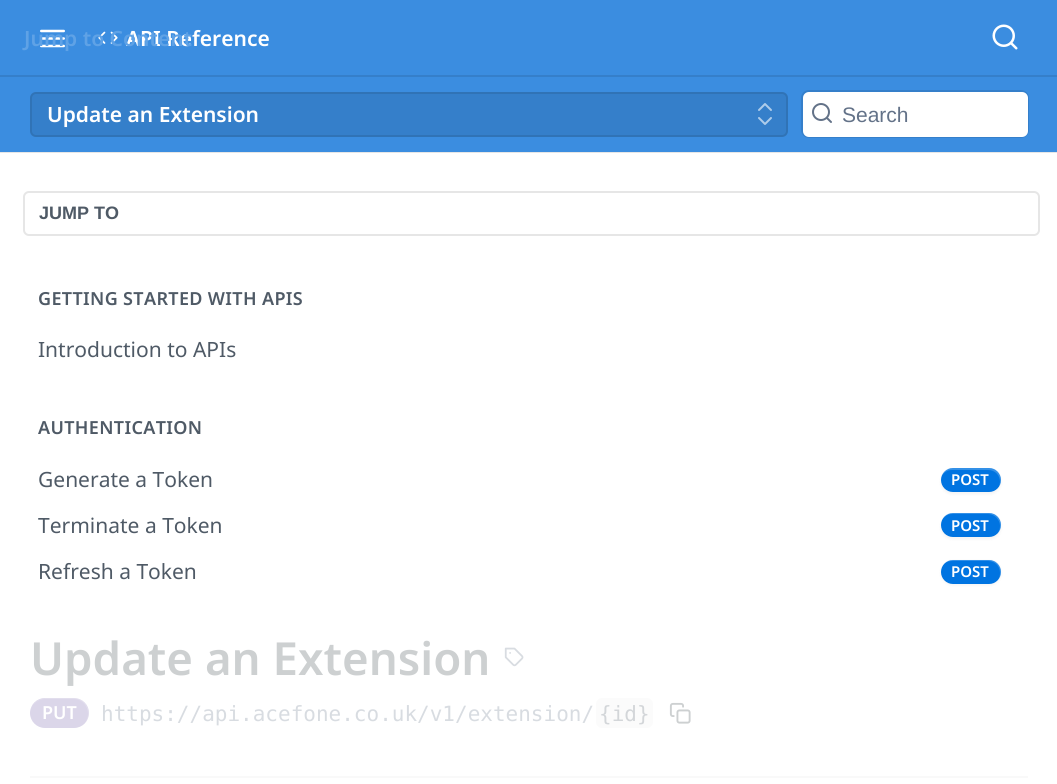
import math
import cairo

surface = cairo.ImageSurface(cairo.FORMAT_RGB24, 1057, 784)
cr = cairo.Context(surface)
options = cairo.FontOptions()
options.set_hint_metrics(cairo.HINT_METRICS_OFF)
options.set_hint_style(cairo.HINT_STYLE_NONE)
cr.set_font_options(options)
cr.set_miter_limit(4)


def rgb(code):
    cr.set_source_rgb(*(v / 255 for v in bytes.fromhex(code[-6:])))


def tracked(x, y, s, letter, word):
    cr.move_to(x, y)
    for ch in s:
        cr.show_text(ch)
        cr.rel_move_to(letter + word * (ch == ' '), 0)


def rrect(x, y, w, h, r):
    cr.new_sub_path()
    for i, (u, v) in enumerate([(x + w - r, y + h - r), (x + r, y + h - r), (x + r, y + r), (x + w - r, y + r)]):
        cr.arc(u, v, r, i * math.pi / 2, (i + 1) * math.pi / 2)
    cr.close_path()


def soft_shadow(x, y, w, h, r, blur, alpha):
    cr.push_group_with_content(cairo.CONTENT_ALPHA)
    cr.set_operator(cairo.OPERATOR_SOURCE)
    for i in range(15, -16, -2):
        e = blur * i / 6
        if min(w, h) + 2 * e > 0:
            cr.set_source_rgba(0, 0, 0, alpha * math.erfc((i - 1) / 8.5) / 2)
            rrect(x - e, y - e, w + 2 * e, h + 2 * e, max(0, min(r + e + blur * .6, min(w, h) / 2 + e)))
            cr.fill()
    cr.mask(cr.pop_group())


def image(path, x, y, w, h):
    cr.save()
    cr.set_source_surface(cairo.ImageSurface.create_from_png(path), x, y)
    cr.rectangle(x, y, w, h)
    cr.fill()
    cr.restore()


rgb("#ffffff")
cr.paint()
rgb("#e6e6e6")
cr.new_path()
cr.move_to(0, 152)
cr.line_to(0, 153)
cr.line_to(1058, 153)
cr.line_to(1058, 2)
cr.line_to(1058, 152)
cr.close_path()
cr.fill()
rgb("#3b8de0")
cr.rectangle(0, 0, 1057, 152)
cr.fill()
rgb("#357fca")
cr.rectangle(0, 75, 1057, 2)
cr.fill()
image("img/1.png", 40, 29, 25, 19)
image("img/2.png", 98, 31, 20, 13)
image("img/3.png", 992, 24, 26, 26)
rrect(30, 92, 758, 45, 6)
cr.fill()
rrect(31, 93, 756, 43, 5)
cr.set_source_rgba(0, 0, 0, 0.1)
cr.stroke()
cr.new_path()
cr.move_to(759, 118)
cr.line_to(765, 124)
cr.line_to(771, 118)
cr.move_to(771, 110)
cr.line_to(765, 104)
cr.line_to(759, 110)
rgb("#aeccea")
cr.set_line_cap(cairo.LINE_CAP_ROUND)
cr.set_line_join(cairo.LINE_JOIN_ROUND)
cr.stroke()
rrect(802, 91, 226, 46, 7)
rgb("#357fca")
cr.set_line_cap(cairo.LINE_CAP_BUTT)
cr.set_line_join(cairo.LINE_JOIN_MITER)
cr.stroke()
rgb("#ffffff")
rrect(803, 92, 225, 45, 6)
cr.fill()
image("img/4.png", 812, 103, 20, 20)
rrect(24, 192, 1015, 43, 5)
rgb("#e6e6e6")
cr.stroke()
rgb("#000000")
soft_shadow(941, 470, 60, 24, 12, 1.5, 0.05)
rgb("#0074e1")
rrect(941, 468, 60, 24, 12)
cr.fill()
cr.set_source_rgba(1, 1, 1, 0.2)
cr.new_path()
cr.move_to(952, 470)
cr.line_to(988, 470)
cr.curve_to(995, 470, 1000, 475, 1000, 482)
cr.line_to(999, 487)
cr.curve_to(1000, 485, 1001, 482, 1001, 480)
cr.curve_to(1001, 473, 996, 468, 989, 468)
cr.line_to(953, 468)
cr.curve_to(948, 468, 943, 471, 942, 476)
cr.curve_to(944, 472, 948, 470, 952, 470)
cr.close_path()
cr.fill()
rgb("#000000")
soft_shadow(941, 515, 60, 24, 12, 1.5, 0.05)
rgb("#0074e1")
rrect(941, 513, 60, 24, 12)
cr.fill()
cr.set_source_rgba(1, 1, 1, 0.2)
cr.new_path()
cr.move_to(952, 514)
cr.line_to(988, 514)
cr.curve_to(995, 514, 1000, 520, 1000, 526)
cr.curve_to(1000, 529, 999, 531, 998, 533)
cr.curve_to(1000, 531, 1001, 528, 1001, 525)
cr.curve_to(1001, 518, 996, 513, 989, 513)
cr.line_to(953, 513)
cr.curve_to(948, 513, 945, 515, 943, 519)
cr.curve_to(945, 516, 948, 514, 952, 514)
cr.close_path()
cr.fill()
rgb("#000000")
soft_shadow(941, 561, 60, 24, 12, 1.5, 0.05)
rgb("#0074e1")
rrect(941, 560, 60, 24, 12)
cr.fill()
cr.set_source_rgba(1, 1, 1, 0.2)
cr.new_path()
cr.move_to(952, 561)
cr.line_to(988, 561)
cr.curve_to(995, 561, 1000, 566, 1000, 573)
cr.curve_to(1000, 576, 999, 578, 998, 580)
cr.curve_to(1000, 578, 1001, 575, 1001, 572)
cr.curve_to(1001, 565, 996, 560, 989, 560)
cr.line_to(953, 560)
cr.curve_to(949, 560, 946, 562, 944, 564)
cr.curve_to(946, 562, 949, 561, 952, 561)
cr.close_path()
cr.fill()
rgb("#f9f9f9")
cr.rectangle(30, 776, 998, 2)
cr.fill()
image("img/5.png", 504, 647, 20, 20)
rgb("#dbd6e9")
rrect(30, 698, 59, 30, 15)
cr.fill()
cr.set_source_rgba(1, 1, 1, 0.2)
cr.new_path()
cr.move_to(45, 699)
cr.line_to(74, 699)
cr.curve_to(82, 699, 88, 706, 88, 714)
cr.curve_to(88, 717, 87, 720, 85, 723)
cr.curve_to(93, 715, 88, 701, 77, 698)
cr.line_to(60, 698)
cr.curve_to(50, 698, 39, 696, 33, 705)
cr.curve_to(31, 707, 30, 710, 30, 714)
cr.curve_to(30, 706, 37, 699, 45, 699)
cr.close_path()
cr.fill()
rgb("#fbfbfb")
rrect(596, 698, 57, 30, 6)
cr.fill()
image("img/6.png", 669, 702, 22, 22)
cr.select_font_face("Noto Sans SemiBold")
cr.set_font_size(21)
rgb("#ffffff")
cr.move_to(126, 46)
cr.show_text("API Reference")
rgb("#5fa2e6")
cr.move_to(24, 46)
cr.show_text("Jump to Content")
rgb("#ffffff")
cr.move_to(47, 122)
cr.show_text("Update an Extension")
cr.select_font_face("Liberation Sans")
rgb("#637288")
cr.move_to(842, 122)
cr.show_text("Search")
cr.select_font_face("Liberation Sans", cairo.FONT_SLANT_NORMAL, cairo.FONT_WEIGHT_BOLD)
cr.set_font_size(18)
rgb("#4f5a66")
cr.move_to(39, 219)
cr.show_text("JUMP TO")
cr.select_font_face("Noto Sans SemiBold")
tracked(38, 305, "GETTING STARTED WITH APIS", 0.35, 0)
cr.select_font_face("Noto Sans")
cr.set_font_size(21)
cr.move_to(38, 357)
cr.show_text("Introduction to APIs")
cr.select_font_face("Noto Sans SemiBold")
cr.set_font_size(18)
tracked(38, 434, "AUTHENTICATION", 0.35, 0)
cr.select_font_face("Noto Sans")
cr.set_font_size(21)
cr.move_to(38, 487)
cr.show_text("Generate a Token")
cr.select_font_face("Noto Sans SemiBold")
cr.set_font_size(15)
rgb("#ffffff")
cr.move_to(951, 485)
cr.show_text("POST")
cr.select_font_face("Noto Sans")
cr.set_font_size(21)
rgb("#4f5a66")
cr.move_to(38, 533)
cr.show_text("Terminate a Token")
cr.select_font_face("Noto Sans SemiBold")
cr.set_font_size(15)
rgb("#ffffff")
cr.move_to(951, 531)
cr.show_text("POST")
cr.select_font_face("Noto Sans")
cr.set_font_size(21)
rgb("#4f5a66")
cr.move_to(38, 579)
cr.show_text("Refresh a Token")
cr.select_font_face("Noto Sans SemiBold")
cr.set_font_size(15)
rgb("#ffffff")
cr.move_to(951, 577)
cr.show_text("POST")
cr.set_font_size(45.6)
rgb("#cdd0d1")
cr.move_to(30, 675)
cr.show_text("Update an Extension")
cr.set_font_size(18)
rgb("#ffffff")
cr.move_to(42, 719)
cr.show_text("PUT")
cr.select_font_face("DejaVu Sans Mono")
cr.set_font_size(21)
rgb("#d8dce1")
cr.move_to(101, 721)
cr.show_text("https://api.acefone.co.uk/v1/extension/")
rgb("#d3d6d9")
cr.move_to(599, 721)
cr.show_text("{id}")
surface.write_to_png("page.png")
